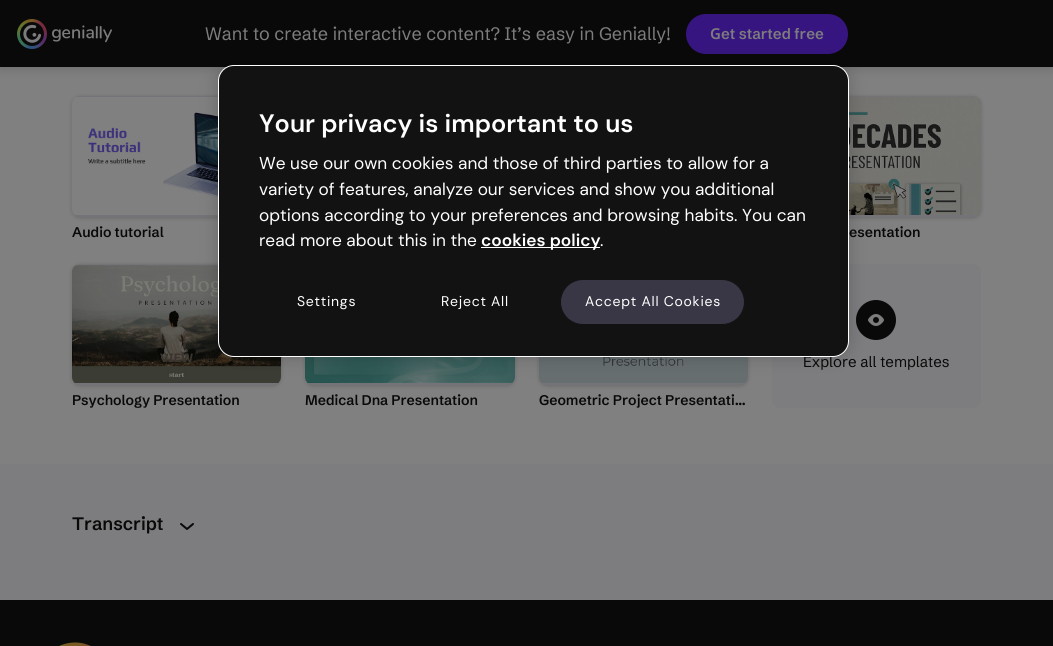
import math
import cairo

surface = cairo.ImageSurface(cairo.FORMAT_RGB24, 1053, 646)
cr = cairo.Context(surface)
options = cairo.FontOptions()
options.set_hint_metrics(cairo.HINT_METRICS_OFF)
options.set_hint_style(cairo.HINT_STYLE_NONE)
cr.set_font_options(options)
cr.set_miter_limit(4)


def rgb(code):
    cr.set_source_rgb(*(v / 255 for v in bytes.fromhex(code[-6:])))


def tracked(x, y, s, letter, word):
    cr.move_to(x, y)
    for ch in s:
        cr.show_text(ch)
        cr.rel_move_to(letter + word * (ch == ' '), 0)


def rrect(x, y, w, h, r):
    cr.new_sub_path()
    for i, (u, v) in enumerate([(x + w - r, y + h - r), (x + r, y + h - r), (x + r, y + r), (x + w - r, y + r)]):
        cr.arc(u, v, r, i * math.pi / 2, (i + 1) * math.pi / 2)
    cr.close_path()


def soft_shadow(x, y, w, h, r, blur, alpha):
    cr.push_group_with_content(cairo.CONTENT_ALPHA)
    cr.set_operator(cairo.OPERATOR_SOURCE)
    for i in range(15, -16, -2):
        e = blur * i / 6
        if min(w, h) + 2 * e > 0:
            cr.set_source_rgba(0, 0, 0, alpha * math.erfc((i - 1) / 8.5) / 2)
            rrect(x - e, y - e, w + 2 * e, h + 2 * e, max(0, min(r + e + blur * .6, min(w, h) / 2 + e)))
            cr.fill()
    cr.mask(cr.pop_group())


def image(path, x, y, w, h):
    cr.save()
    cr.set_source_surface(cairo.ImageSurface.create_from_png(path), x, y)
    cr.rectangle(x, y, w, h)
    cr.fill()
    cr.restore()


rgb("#808080")
cr.paint()
rgb("#090909")
soft_shadow(0, -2, 1053, 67, 0, 6.5, 0.3)
rgb("#090909")
cr.rectangle(0, 0, 1053, 67)
cr.fill()
image("img/1.png", 17, 19, 95, 30)
rgb("#361580")
rrect(686, 14, 162, 40, 20)
cr.fill()
rgb("#090909")
soft_shadow(72, 97, 209, 121, 8, 2, 0.2)
rgb("#747378")
rrect(72, 96, 209, 121, 8)
cr.fill()
image("img/2.png", 72, 97, 146, 118)
rgb("#090909")
soft_shadow(772, 97, 209, 121, 8, 2, 0.2)
rgb("#747378")
rrect(772, 96, 209, 121, 8)
cr.fill()
image("img/3.png", 849, 97, 132, 118)
rgb("#090909")
soft_shadow(72, 265, 209, 121, 8, 2, 0.2)
rgb("#747378")
rrect(72, 264, 209, 121, 8)
cr.fill()
image("img/4.png", 72, 265, 209, 118)
rgb("#7d7c7e")
rrect(772, 264, 209, 144, 8)
cr.fill()
rgb("#090909")
cr.arc(876, 320, 20, 0, 2 * math.pi)
cr.fill()
image("img/5.png", 868, 314, 16, 12)
rgb("#090909")
soft_shadow(305, 265, 210, 121, 8, 2, 0.2)
rgb("#747378")
rrect(305, 264, 210, 121, 8)
cr.fill()
image("img/6.png", 305, 357, 210, 26)
rgb("#090909")
soft_shadow(539, 265, 209, 121, 8, 2, 0.2)
rgb("#747378")
rrect(539, 264, 209, 121, 8)
cr.fill()
image("img/7.png", 539, 357, 209, 26)
rgb("#7d7c7e")
cr.rectangle(0, 464, 1053, 136)
cr.fill()
image("img/8.png", 180, 523, 14, 7)
rgb("#090909")
cr.rectangle(0, 600, 1053, 46)
cr.fill()
image("img/9.png", 59, 642, 32, 4)
rgb("#000000")
soft_shadow(218, 65, 631, 292, 16, 9, 0.2)
cr.select_font_face("Schibsted Grotesk")
cr.set_font_size(18)
rgb("#7d7c7e")
cr.move_to(205, 40)
cr.show_text("Want to create interactive content? It’s easy in Genially!")
cr.select_font_face("Noto Sans SemiBold")
cr.set_font_size(15)
cr.move_to(710, 39)
cr.show_text("G")
cr.select_font_face("Schibsted Grotesk SemiBold")
cr.move_to(721, 39)
cr.show_text("et started free")
cr.set_font_size(14)
rgb("#090909")
cr.move_to(72, 237)
cr.show_text("Audio tutorial")
cr.select_font_face("Schibsted Grotesk", cairo.FONT_SLANT_NORMAL, cairo.FONT_WEIGHT_BOLD)
cr.set_font_size(12)
rgb("#5b584d")
cr.move_to(860, 194)
cr.show_text("VIEW")
cr.select_font_face("Schibsted Grotesk SemiBold")
cr.set_font_size(14)
rgb("#090909")
cr.move_to(849, 237)
cr.show_text("esentation")
cr.select_font_face("Schibsted Grotesk", cairo.FONT_SLANT_NORMAL, cairo.FONT_WEIGHT_BOLD)
cr.set_font_size(12)
rgb("#3a352e")
cr.move_to(160, 362)
cr.show_text("VIEW")
cr.select_font_face("Schibsted Grotesk SemiBold")
cr.set_font_size(14)
rgb("#090909")
cr.move_to(72, 405)
cr.show_text("Psychology Presentation")
cr.select_font_face("Schibsted Grotesk")
cr.set_font_size(15)
cr.move_to(803, 367)
cr.show_text("Explore all templates")
cr.select_font_face("Schibsted Grotesk SemiBold")
cr.set_font_size(14)
cr.move_to(305, 405)
cr.show_text("Medical Dna Presentation")
cr.move_to(539, 405)
cr.show_text("Geometric Project Presentati…")
cr.set_font_size(18)
cr.move_to(72, 530)
cr.show_text("Transcript")
rgb("#121212")
rrect(218.5, 65.5, 630, 291, 15.5)
cr.fill_preserve()
rgb("#ffffff")
cr.set_line_width(1)
cr.stroke()
cr.select_font_face("DM Sans SemiBold")
cr.set_font_size(25.25)
cr.move_to(259, 132)
cr.show_text("Your privacy is important to us")
cr.select_font_face("DM Sans")
cr.set_font_size(17.25)
for x, y, s in [
    (259, 169, "We use our own cookies and those of third parties to allow for a"),
    (259, 195, "variety of features, analyze our services and show you additional"),
    (259, 221, "options according to your preferences and browsing habits. You can"),
    (259, 246, "read more about this in the"),
]:
    cr.move_to(x, y)
    cr.show_text(s)
cr.rectangle(481, 247, 119, 1)
cr.fill()
cr.select_font_face("DM Sans SemiBold")
cr.move_to(481, 246)
cr.show_text("cookies policy")
cr.select_font_face("DM Sans")
cr.move_to(600, 246)
cr.show_text(".")
cr.set_font_size(14)
tracked(297, 306, "Settings", 0.75, 0)
tracked(441, 306, "Reject All", 0.75, 0)
rgb("#393645")
rrect(560.5, 279.5, 184, 45, 22.5)
cr.fill_preserve()
rgb("#121212")
cr.stroke()
rgb("#ffffff")
tracked(585, 306, "Accept All Cookies", 0.75, 0)
surface.write_to_png("page.png")
